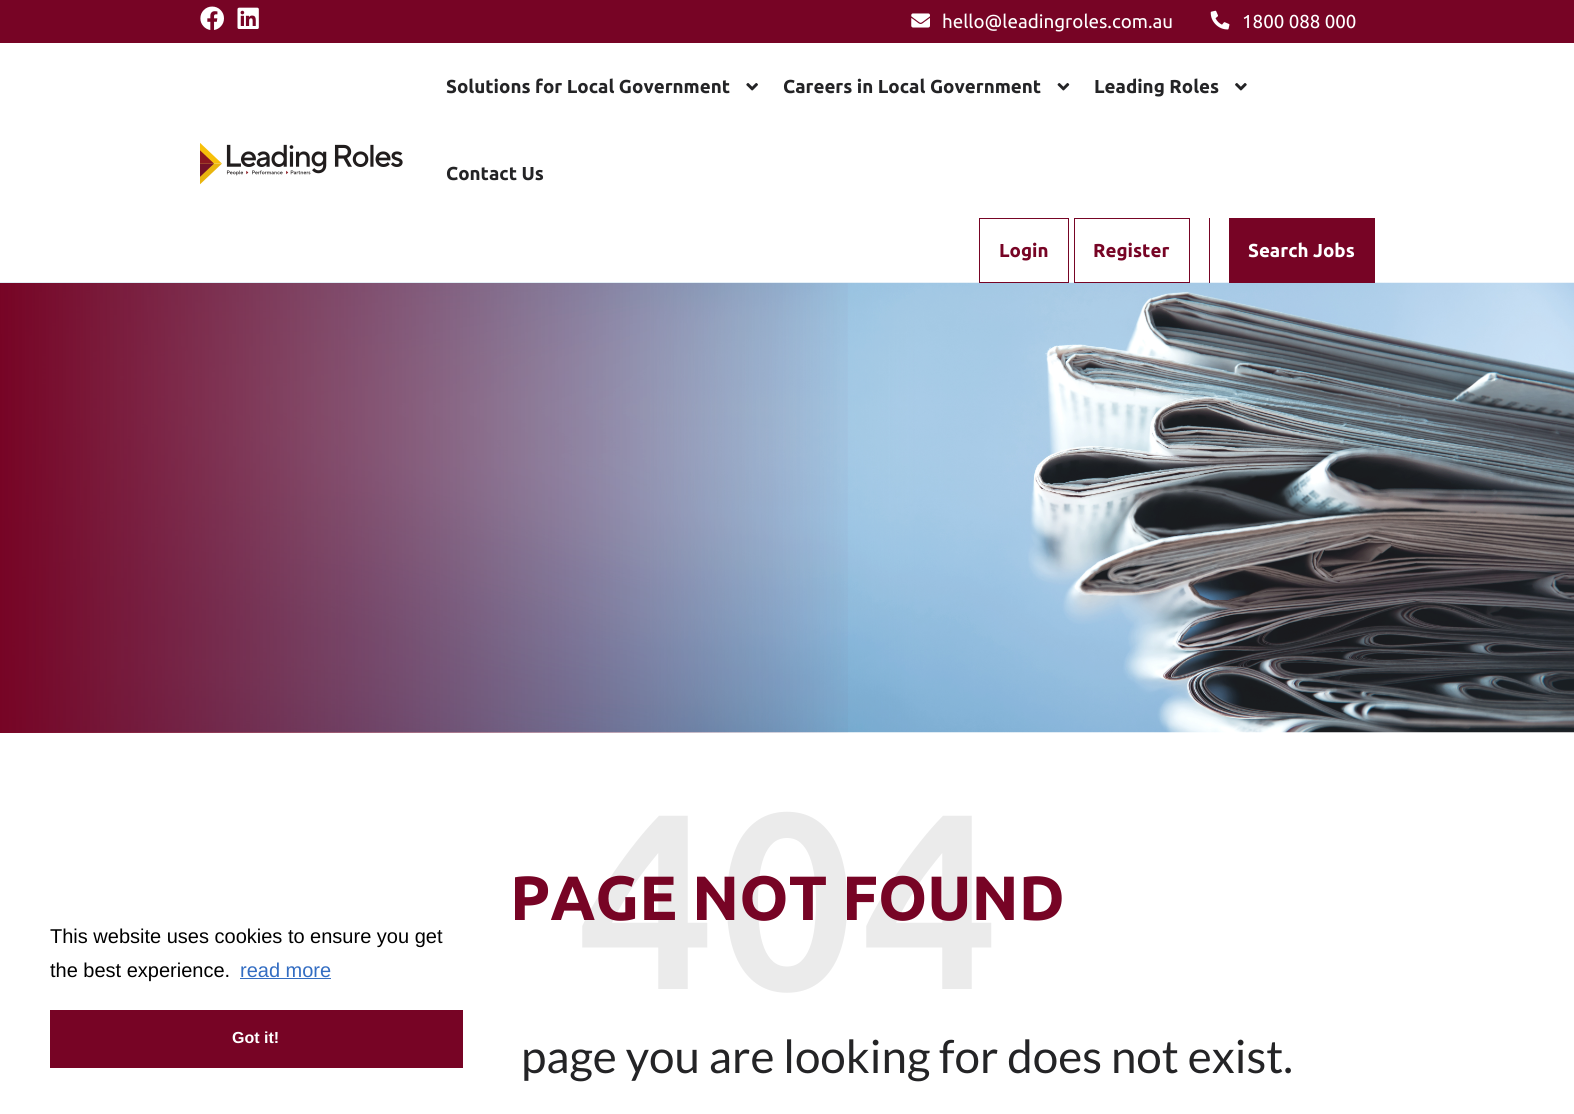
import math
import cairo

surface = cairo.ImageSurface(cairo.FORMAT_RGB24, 1574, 1114)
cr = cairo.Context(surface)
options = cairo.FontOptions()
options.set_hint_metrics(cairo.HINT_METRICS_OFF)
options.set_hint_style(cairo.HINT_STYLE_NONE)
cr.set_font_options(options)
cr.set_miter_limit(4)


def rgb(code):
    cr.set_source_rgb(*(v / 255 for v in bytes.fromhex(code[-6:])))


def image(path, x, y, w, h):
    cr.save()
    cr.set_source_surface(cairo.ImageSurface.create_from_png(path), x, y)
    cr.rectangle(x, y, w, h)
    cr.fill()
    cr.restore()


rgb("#ffffff")
cr.paint()
for x, y, w, h, color in [
    (240, 978, 91, 1, "#336dc2"),
    (50, 1010, 413, 58, "#770425"),
    (0, 0, 1574, 43, "#770425"),
]:
    rgb(color)
    cr.rectangle(x, y, w, h)
    cr.fill()
image("img/1.png", 200, 6, 24, 24)
image("img/2.png", 237, 7, 22, 22)
image("img/3.png", 911, 13, 19, 15)
image("img/4.png", 1210, 10, 20, 20)
image("img/5.png", 200, 143, 203, 42)
image("img/6.png", 746, 83, 12, 8)
image("img/7.png", 1057, 83, 13, 8)
image("img/8.png", 1235, 83, 12, 8)
image("img/9.png", 0, 282, 1574, 451)
cr.rectangle(1209, 218, 1, 65)
cr.fill()
cr.rectangle(979.5, 218.5, 89, 64)
cr.set_line_width(1)
cr.stroke()
cr.rectangle(1074.5, 218.5, 115, 64)
cr.stroke()
cr.rectangle(1229, 218, 146, 65)
cr.fill()
gradient = cairo.LinearGradient(866, 507, 0, 508)
gradient.add_color_stop_rgba(0, 0.467, 0.016, 0.145, 0)
gradient.add_color_stop_rgba(1, 0.467, 0.016, 0.145, 1)
cr.set_source(gradient)
cr.rectangle(0, 283, 848, 450)
cr.fill()
cr.select_font_face("Liberation Sans")
cr.set_font_size(20)
rgb("#000000")
cr.move_to(50, 943)
cr.show_text("This website uses cookies to ensure you get")
cr.move_to(50, 977)
cr.show_text("the best experience.")
rgb("#336dc2")
cr.move_to(240, 977)
cr.show_text("read more")
cr.select_font_face("Liberation Sans", cairo.FONT_SLANT_NORMAL, cairo.FONT_WEIGHT_BOLD)
cr.set_font_size(16)
rgb("#ffffff")
cr.move_to(232, 1043)
cr.show_text("Got it!")
cr.select_font_face("Ubuntu")
cr.set_font_size(18.75)
cr.move_to(942, 28)
cr.show_text("hello@leadingroles.com.au")
cr.move_to(1242, 28)
cr.show_text("1800 088 000")
cr.select_font_face("Ubuntu", cairo.FONT_SLANT_NORMAL, cairo.FONT_WEIGHT_BOLD)
rgb("#242426")
for x, y, s in [
    (446, 93, "Solutions for Local Government"),
    (783, 93, "Careers in Local Government"),
    (1094, 93, "Leading Roles"),
    (446, 180, "Contact Us"),
]:
    cr.move_to(x, y)
    cr.show_text(s)
rgb("#770425")
cr.move_to(999, 257)
cr.show_text("Login")
cr.move_to(1093, 257)
cr.show_text("Register")
rgb("#ffffff")
cr.move_to(1248, 257)
cr.show_text("Search Jobs")
cr.select_font_face("Ubuntu Medium")
cr.set_font_size(250)
rgb("#ebebeb")
cr.move_to(574, 989)
cr.show_text("404")
cr.select_font_face("Ubuntu", cairo.FONT_SLANT_NORMAL, cairo.FONT_WEIGHT_BOLD)
cr.set_font_size(62.5)
rgb("#770425")
cr.move_to(510, 920)
cr.show_text("PAGE NOT FOUND")
cr.select_font_face("Lato")
cr.set_font_size(45.75)
rgb("#242426")
cr.move_to(521, 1073)
cr.show_text("page you are looking for does not exist.")
surface.write_to_png("page.png")
